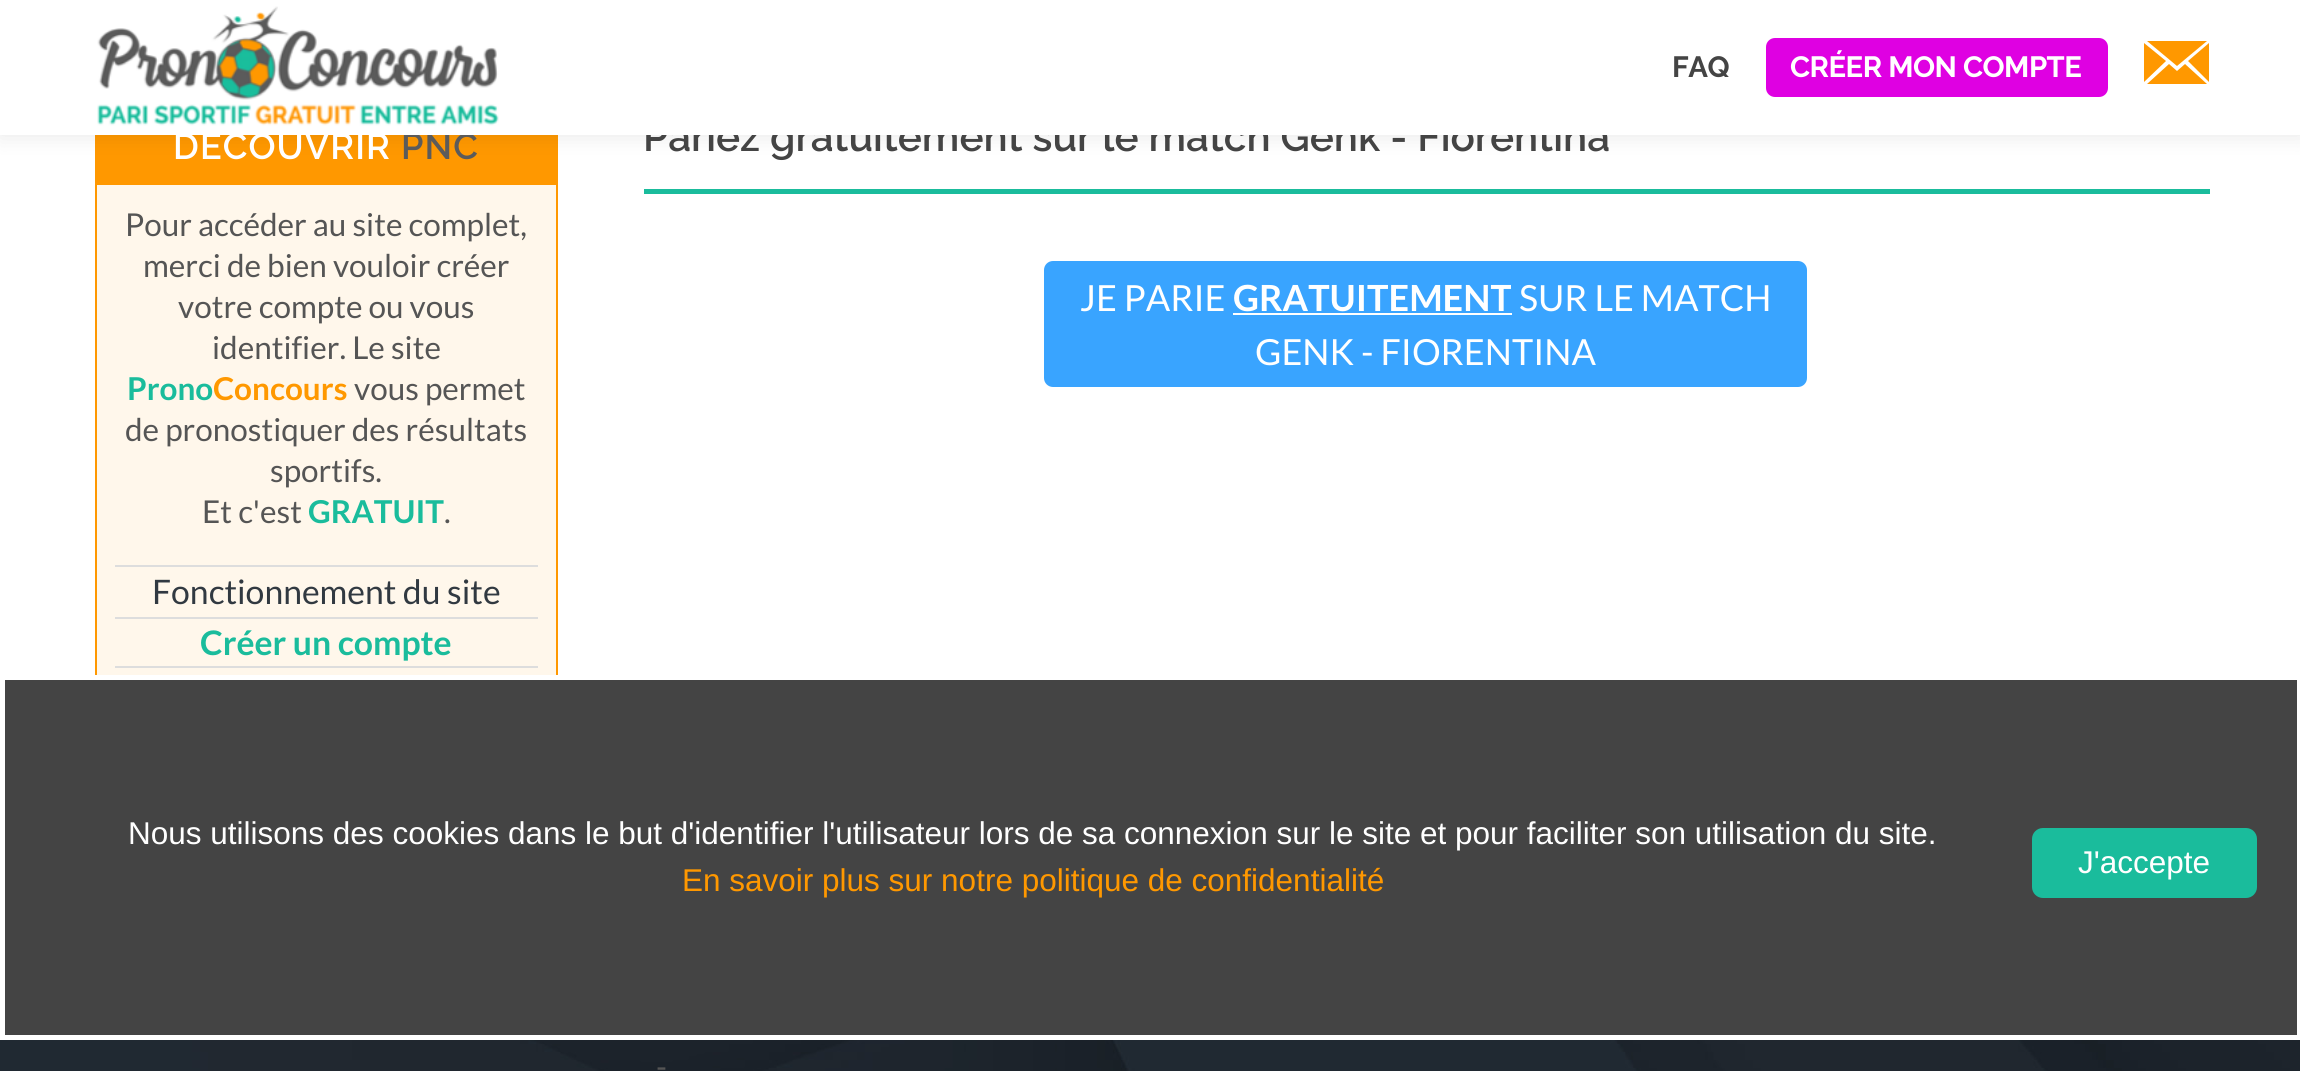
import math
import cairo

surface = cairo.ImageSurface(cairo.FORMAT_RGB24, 2300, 1071)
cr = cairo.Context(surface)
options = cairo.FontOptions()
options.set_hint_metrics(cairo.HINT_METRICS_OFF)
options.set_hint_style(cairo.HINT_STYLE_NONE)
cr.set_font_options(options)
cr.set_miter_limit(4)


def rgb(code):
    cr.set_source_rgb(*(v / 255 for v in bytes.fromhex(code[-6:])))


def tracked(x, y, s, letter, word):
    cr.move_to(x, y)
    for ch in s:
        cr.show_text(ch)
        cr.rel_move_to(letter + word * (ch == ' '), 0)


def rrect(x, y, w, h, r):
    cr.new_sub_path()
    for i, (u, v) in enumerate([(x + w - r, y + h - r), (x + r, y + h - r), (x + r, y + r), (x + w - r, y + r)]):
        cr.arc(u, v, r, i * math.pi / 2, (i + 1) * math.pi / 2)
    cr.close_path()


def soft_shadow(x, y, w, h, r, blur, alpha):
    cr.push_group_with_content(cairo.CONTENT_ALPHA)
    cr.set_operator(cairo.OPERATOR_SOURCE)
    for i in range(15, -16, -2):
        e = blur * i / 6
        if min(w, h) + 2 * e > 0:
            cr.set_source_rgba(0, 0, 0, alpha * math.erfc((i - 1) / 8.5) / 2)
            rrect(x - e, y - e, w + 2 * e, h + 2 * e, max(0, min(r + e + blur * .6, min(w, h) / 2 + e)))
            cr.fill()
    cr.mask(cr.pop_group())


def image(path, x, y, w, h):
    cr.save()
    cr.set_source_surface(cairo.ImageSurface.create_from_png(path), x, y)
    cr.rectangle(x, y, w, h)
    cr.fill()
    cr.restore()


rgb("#ffffff")
cr.paint()
rgb("#fff7eb")
cr.rectangle(97, 185, 459, 490)
cr.fill()
cr.rectangle(96, 107, 461, 680)
rgb("#ff9800")
cr.stroke()
cr.rectangle(97, 135, 459, 50)
cr.fill()
rgb("#000000")
soft_shadow(0, 0, 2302, 135, 0, 11, 0.1)
for x, y, w, h, color in [
    (115, 565, 423, 2, "#dddddd"),
    (115, 617, 423, 2, "#dddddd"),
    (115, 666, 423, 2, "#dddddd"),
    (644, 189, 1566, 5, "#1abc9c"),
]:
    rgb(color)
    cr.rectangle(x, y, w, h)
    cr.fill()
rgb("#39a4ff")
rrect(1045, 262, 761, 124, 8)
cr.fill_preserve()
cr.stroke()
rgb("#ffffff")
cr.rectangle(1233, 313, 279, 2)
cr.fill()
image("img/2.png", 0, 1040, 2300, 31)
rgb("#444444")
cr.rectangle(2.5, 677.5, 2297, 360)
cr.fill_preserve()
rgb("#ffffff")
cr.set_line_width(5)
cr.stroke()
rgb("#1abc9c")
rrect(2032, 828, 225, 70, 11)
cr.fill()
cr.select_font_face("Raleway SemiBold")
cr.set_font_size(36)
rgb("#ffffff")
tracked(173, 159, "DÉCOUVRIR", 1.1, 0)
rgb("#5b5b5b")
tracked(401, 159, "PNC", 1.1, 0)
cr.select_font_face("Lato")
cr.set_font_size(31.5)
rgb("#555555")
for x, y, s in [
    (125, 236, "Pour accéder au site complet,"),
    (143, 277, "merci de bien vouloir créer"),
    (178, 318, "votre compte ou vous"),
    (212, 359, "identifier. Le site"),
]:
    cr.move_to(x, y)
    cr.show_text(s)
cr.select_font_face("Lato", cairo.FONT_SLANT_NORMAL, cairo.FONT_WEIGHT_BOLD)
rgb("#1abc9c")
cr.move_to(127, 400)
cr.show_text("Prono")
rgb("#ff9800")
cr.move_to(213, 400)
cr.show_text("Concours")
cr.select_font_face("Lato")
rgb("#555555")
for x, y, s in [
    (354, 400, "vous permet"),
    (125, 441, "de pronostiquer des résultats"),
    (270, 482, "sportifs."),
    (202, 523, "Et c'est"),
]:
    cr.move_to(x, y)
    cr.show_text(s)
cr.select_font_face("Lato", cairo.FONT_SLANT_NORMAL, cairo.FONT_WEIGHT_BOLD)
rgb("#1abc9c")
cr.move_to(308, 523)
cr.show_text("GRATUIT")
cr.select_font_face("Lato")
rgb("#555555")
cr.move_to(444, 523)
cr.show_text(".")
cr.set_font_size(33.75)
rgb("#313941")
cr.move_to(152, 604)
cr.show_text("Fonctionnement du site")
cr.select_font_face("Lato", cairo.FONT_SLANT_NORMAL, cairo.FONT_WEIGHT_BOLD)
rgb("#1abc9c")
cr.move_to(200, 655)
cr.show_text("Créer un compte")
cr.select_font_face("Raleway SemiBold")
cr.set_font_size(40.5)
rgb("#444444")
cr.move_to(643, 151)
cr.show_text("Pariez gratuitement sur le match Genk - Fiorentina")
rgb("#ffffff")
cr.rectangle(0, 0, 2300, 135)
cr.fill()
rgb("#ff9800")
cr.new_path()
cr.move_to(2144, 81)
cr.line_to(2144, 43)
cr.line_to(2166, 61)
cr.line_to(2144, 82)
cr.close_path()
cr.move_to(2147, 41)
cr.line_to(2207, 41)
cr.line_to(2177, 66)
cr.close_path()
cr.move_to(2147, 84)
cr.line_to(2169, 64)
cr.line_to(2177, 71)
cr.line_to(2185, 64)
cr.line_to(2207, 84)
cr.close_path()
cr.move_to(2188, 61)
cr.line_to(2209, 43)
cr.line_to(2209, 82)
cr.close_path()
cr.fill()
rgb("#df00e2")
rrect(1767, 39, 340, 57, 8)
cr.fill_preserve()
cr.set_line_width(2)
cr.stroke()
cr.select_font_face("Raleway", cairo.FONT_SLANT_NORMAL, cairo.FONT_WEIGHT_BOLD)
cr.set_font_size(29.25)
rgb("#ffffff")
tracked(1790, 77, "CRÉER MON COMPTE", -0.5, 0)
rgb("#444444")
tracked(1672, 77, "FAQ", -0.5, 0)
image("img/1.png", 97, 6, 402, 120)
cr.select_font_face("Lato")
cr.set_font_size(36)
rgb("#ffffff")
cr.move_to(1080, 311)
cr.show_text("JE PARIE")
cr.select_font_face("Lato", cairo.FONT_SLANT_NORMAL, cairo.FONT_WEIGHT_BOLD)
cr.move_to(1233, 311)
cr.show_text("GRATUITEMENT")
cr.select_font_face("Lato")
cr.move_to(1519, 311)
cr.show_text("SUR LE MATCH")
cr.move_to(1255, 365)
cr.show_text("GENK - FIORENTINA")
cr.set_font_size(31.5)
rgb("#555555")
cr.move_to(656, 1078)
cr.show_text("-")
cr.select_font_face("Liberation Sans")
rgb("#ffffff")
cr.move_to(128, 844)
cr.show_text("Nous utilisons des cookies dans le but d'identifier l'utilisateur lors de sa connexion sur le site et pour faciliter son utilisation du site.")
rgb("#ff9800")
cr.move_to(682, 891)
cr.show_text("En savoir plus sur notre politique de confidentialité")
rgb("#ffffff")
cr.move_to(2078, 873)
cr.show_text("J'accepte")
surface.write_to_png("page.png")
